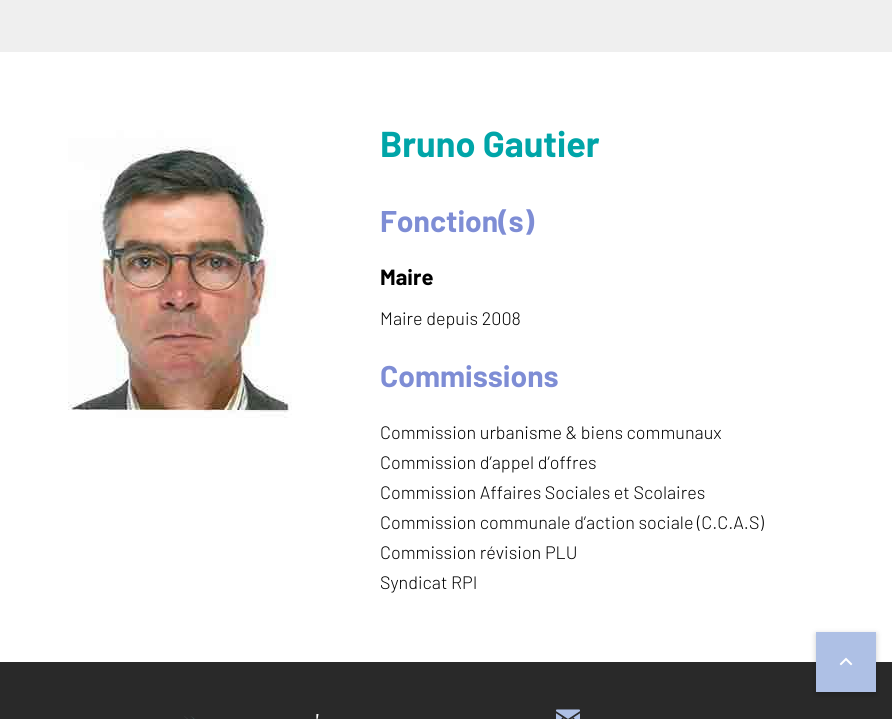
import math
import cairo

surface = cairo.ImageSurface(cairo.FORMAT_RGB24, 892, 719)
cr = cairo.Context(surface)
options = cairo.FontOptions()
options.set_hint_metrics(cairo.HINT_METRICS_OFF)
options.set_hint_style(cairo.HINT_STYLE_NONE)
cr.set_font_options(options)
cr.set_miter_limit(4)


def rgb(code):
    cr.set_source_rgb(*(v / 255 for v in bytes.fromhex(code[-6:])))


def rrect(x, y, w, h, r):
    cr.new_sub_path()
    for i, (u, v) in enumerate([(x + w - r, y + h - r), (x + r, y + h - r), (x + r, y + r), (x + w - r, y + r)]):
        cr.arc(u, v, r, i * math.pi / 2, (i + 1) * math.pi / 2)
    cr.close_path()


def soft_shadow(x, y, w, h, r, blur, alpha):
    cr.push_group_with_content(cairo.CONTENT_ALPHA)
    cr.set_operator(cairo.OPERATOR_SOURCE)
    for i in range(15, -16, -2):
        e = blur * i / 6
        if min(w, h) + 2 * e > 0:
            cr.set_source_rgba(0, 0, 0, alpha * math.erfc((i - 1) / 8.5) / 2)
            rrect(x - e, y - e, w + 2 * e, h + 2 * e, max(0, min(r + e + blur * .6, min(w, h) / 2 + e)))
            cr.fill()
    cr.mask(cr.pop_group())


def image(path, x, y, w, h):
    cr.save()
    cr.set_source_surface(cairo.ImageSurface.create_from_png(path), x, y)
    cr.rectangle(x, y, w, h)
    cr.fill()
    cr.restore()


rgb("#ffffff")
cr.paint()
rgb("#efefef")
cr.rectangle(0, 0, 892, 52)
cr.fill()
image("img/1.png", 20, 122, 320, 320)
rgb("#292929")
cr.rectangle(0, 662, 892, 57)
cr.fill()
rgb("#000000")
soft_shadow(816, 634, 60, 60, 0, 3, 0.2)
rgb("#aec0e5")
cr.rectangle(816, 632, 60, 60)
cr.fill()
image("img/2.png", 839, 657, 14, 9)
image("img/3.png", 184, 716, 11, 3)
image("img/4.png", 556, 709, 24, 10)
cr.select_font_face("Barlow", cairo.FONT_SLANT_NORMAL, cairo.FONT_WEIGHT_BOLD)
cr.set_font_size(36)
rgb("#00a5a8")
cr.move_to(380, 157)
cr.show_text("Bruno Gautier")
cr.set_font_size(30)
rgb("#7e8dd5")
cr.move_to(380, 232)
cr.show_text("Fonction(s)")
cr.set_font_size(22)
rgb("#000000")
cr.move_to(380, 285)
cr.show_text("Maire")
cr.select_font_face("Barlow Light")
cr.set_font_size(18)
cr.move_to(380, 325)
cr.show_text("Maire depuis 2008")
cr.select_font_face("Barlow", cairo.FONT_SLANT_NORMAL, cairo.FONT_WEIGHT_BOLD)
cr.set_font_size(30)
rgb("#7e8dd5")
cr.move_to(380, 387)
cr.show_text("Commissions")
cr.select_font_face("Barlow Light")
cr.set_font_size(18)
rgb("#000000")
for x, y, s in [
    (380, 439, "Commission urbanisme & biens communaux"),
    (380, 469, "Commission d’appel d’offres"),
    (380, 499, "Commission Affaires Sociales et Scolaires"),
    (380, 529, "Commission communale d’action sociale (C.C.A.S)"),
    (380, 559, "Commission révision PLU"),
    (380, 589, "Syndicat RPI"),
]:
    cr.move_to(x, y)
    cr.show_text(s)
cr.select_font_face("Oswald", cairo.FONT_SLANT_NORMAL, cairo.FONT_WEIGHT_BOLD)
cr.set_font_size(16)
rgb("#ffffff")
cr.move_to(316, 727)
cr.show_text("'")
surface.write_to_png("page.png")
